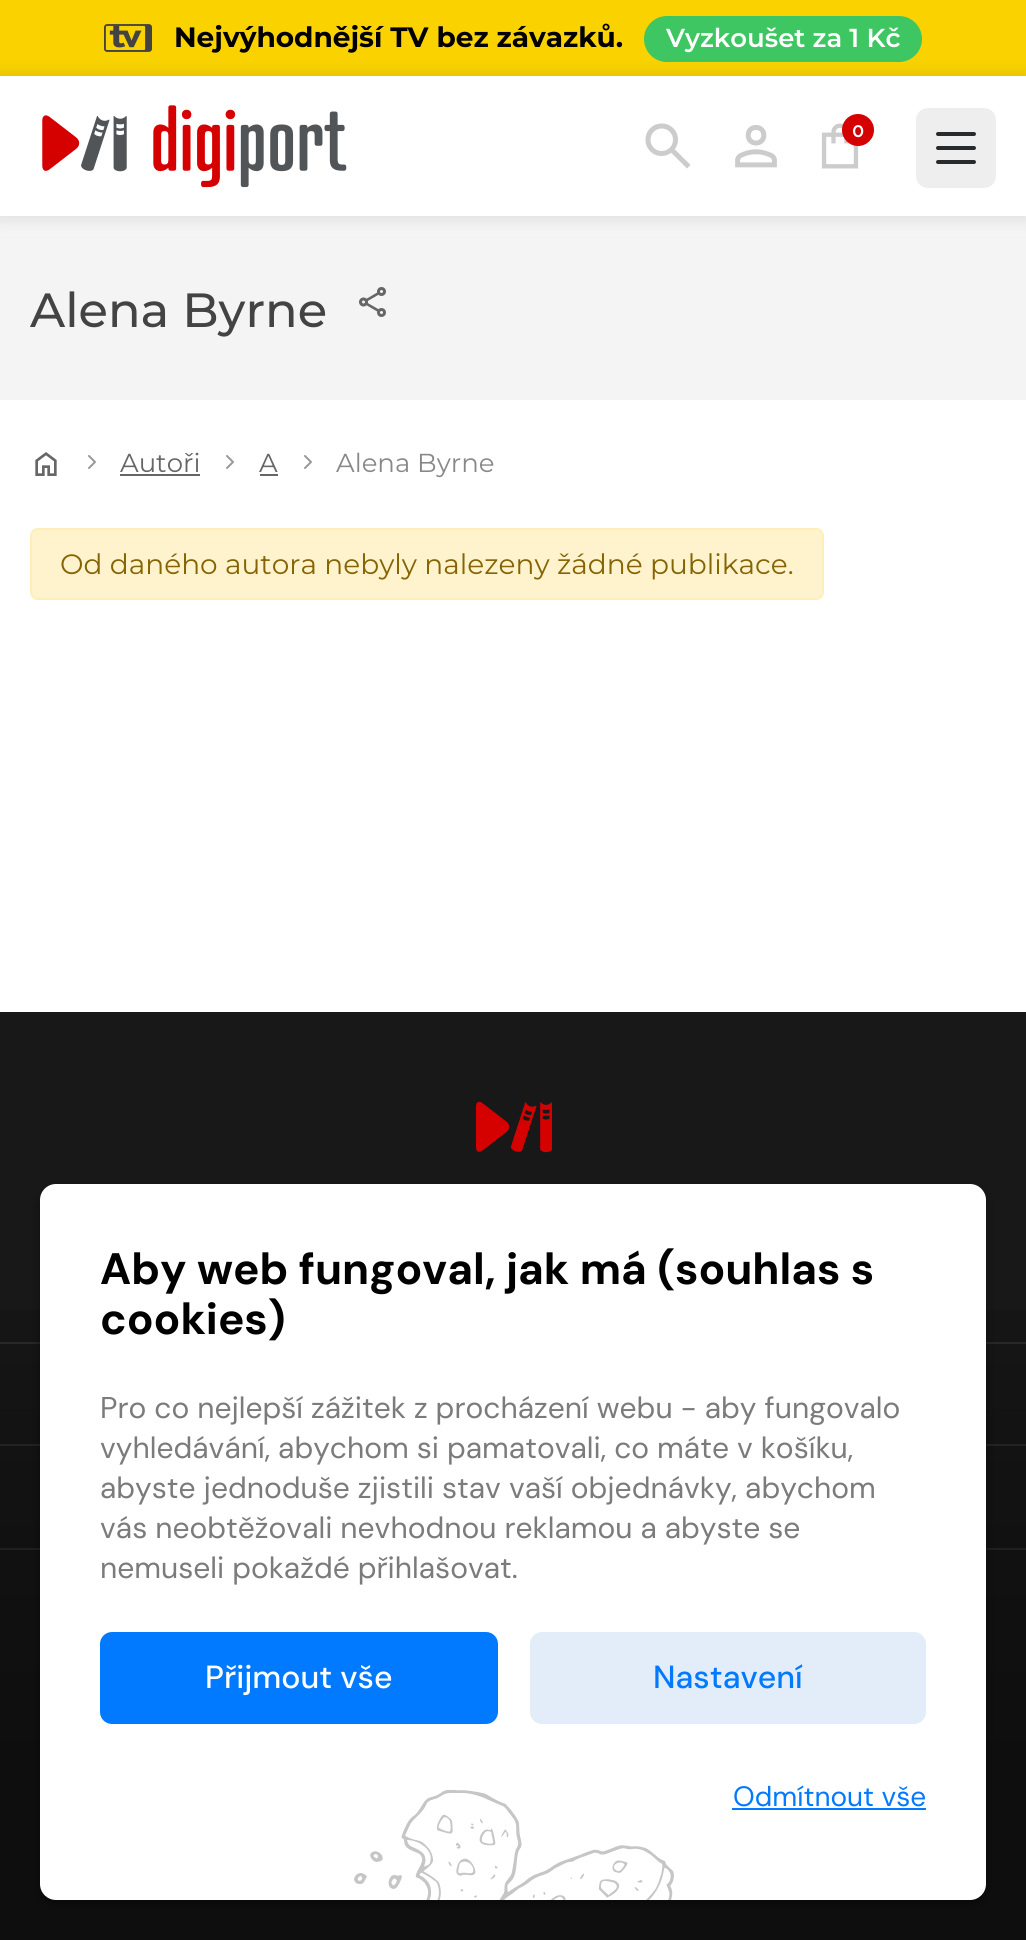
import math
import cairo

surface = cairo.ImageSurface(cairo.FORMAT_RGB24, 1026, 1940)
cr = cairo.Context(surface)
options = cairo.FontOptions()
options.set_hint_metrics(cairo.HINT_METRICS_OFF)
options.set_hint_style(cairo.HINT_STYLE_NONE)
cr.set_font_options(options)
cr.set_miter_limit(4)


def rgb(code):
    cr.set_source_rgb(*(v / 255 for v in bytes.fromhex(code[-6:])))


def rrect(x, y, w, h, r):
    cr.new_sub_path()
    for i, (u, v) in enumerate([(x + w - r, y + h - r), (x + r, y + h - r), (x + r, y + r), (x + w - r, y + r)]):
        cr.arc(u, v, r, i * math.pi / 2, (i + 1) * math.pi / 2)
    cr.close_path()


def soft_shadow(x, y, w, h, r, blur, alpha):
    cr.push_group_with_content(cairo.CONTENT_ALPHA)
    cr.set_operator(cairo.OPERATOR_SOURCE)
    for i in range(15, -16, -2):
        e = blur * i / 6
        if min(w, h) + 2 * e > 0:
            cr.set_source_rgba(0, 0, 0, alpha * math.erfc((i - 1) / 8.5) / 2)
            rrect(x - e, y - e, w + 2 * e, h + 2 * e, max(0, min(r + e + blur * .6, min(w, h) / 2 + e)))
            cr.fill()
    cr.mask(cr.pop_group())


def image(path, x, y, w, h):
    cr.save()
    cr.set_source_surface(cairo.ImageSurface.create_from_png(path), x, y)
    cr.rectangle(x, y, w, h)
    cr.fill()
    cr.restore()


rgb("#ffffff")
cr.paint()
rgb("#f9d200")
cr.rectangle(0, 0, 1026, 76)
cr.fill()
image("img/1.png", 104, 24, 48, 28)
rgb("#3dc661")
rrect(644, 16, 278, 46, 23)
cr.fill()
rgb("#f4f4f4")
cr.rectangle(0, 216, 1026, 184)
cr.fill()
rgb("#000000")
soft_shadow(-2, 74, 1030, 144, 0, 8, 0.1)
rgb("#ffffff")
cr.rectangle(0, 76, 1026, 140)
cr.fill()
image("img/2.png", 42, 105, 305, 83)
image("img/3.png", 645, 123, 46, 46)
image("img/4.png", 735, 125, 42, 43)
image("img/5.png", 821, 123, 38, 46)
rgb("#d50000")
cr.arc(858, 130, 16, 0, 2 * math.pi)
cr.fill()
rgb("#eeeeee")
rrect(916, 108, 80, 80, 12)
cr.fill()
rgb("#282b2d")
rrect(936, 132, 40, 4, 2)
cr.fill()
rrect(936, 146, 40, 4, 2)
cr.fill()
rrect(936, 160, 40, 4, 2)
cr.fill()
image("img/6.png", 359, 287, 27, 30)
image("img/7.png", 35, 452, 22, 24)
cr.new_path()
cr.move_to(89, 468)
cr.line_to(95, 462)
cr.line_to(89, 456)
rgb("#999999")
cr.set_line_cap(cairo.LINE_CAP_ROUND)
cr.set_line_join(cairo.LINE_JOIN_ROUND)
cr.stroke()
rgb("#666666")
cr.rectangle(120, 474, 80, 2)
cr.fill()
cr.new_path()
cr.move_to(227, 468)
cr.line_to(233, 462)
cr.line_to(227, 456)
rgb("#999999")
cr.stroke()
rgb("#666666")
cr.rectangle(260, 474, 18, 2)
cr.fill()
cr.new_path()
cr.move_to(305, 468)
cr.line_to(311, 462)
cr.line_to(305, 456)
rgb("#999999")
cr.stroke()
rgb("#fff3cd")
rrect(31, 529, 792, 70, 7)
cr.fill_preserve()
rgb("#ffeeba")
cr.set_line_cap(cairo.LINE_CAP_BUTT)
cr.set_line_join(cairo.LINE_JOIN_MITER)
cr.stroke()
rgb("#181819")
cr.rectangle(0, 1012, 1026, 928)
cr.fill()
image("img/8.png", 476, 1101, 76, 52)
for x, y, w, h, color in [
    (0, 1342, 1026, 2, "#2d2d2e"),
    (0, 1444, 1026, 2, "#2d2d2e"),
    (0, 1548, 1026, 2, "#2d2d2e"),
]:
    rgb(color)
    cr.rectangle(x, y, w, h)
    cr.fill()
gradient = cairo.LinearGradient(513, 1184, 513, 1940)
gradient.add_color_stop_rgba(0, 0, 0, 0, 0)
gradient.add_color_stop_rgba(0.4, 0, 0, 0, 0.25)
gradient.add_color_stop_rgba(0.75, 0, 0, 0, 0.4)
cr.set_source(gradient)
cr.rectangle(0, 1310, 1026, 630)
cr.fill()
rgb("#000000")
soft_shadow(40, 1188, 946, 716, 16, 5, 0.4)
rgb("#ffffff")
rrect(40, 1184, 946, 716, 16)
cr.fill()
rgb("#017aff")
rrect(100, 1632, 398, 92, 12)
cr.fill()
rgb("#e2edf9")
rrect(530, 1632, 396, 92, 12)
cr.fill()
rgb("#017aff")
cr.rectangle(732, 1808, 194, 2)
cr.fill()
image("img/9.png", 354, 1790, 320, 110)
cr.select_font_face("Montserrat", cairo.FONT_SLANT_NORMAL, cairo.FONT_WEIGHT_BOLD)
cr.set_font_size(28)
rgb("#000000")
cr.move_to(174, 47)
cr.show_text("Nejvýhodnější TV bez závazků.")
cr.select_font_face("Montserrat SemiBold")
cr.set_font_size(26)
rgb("#ffffff")
cr.move_to(666, 47)
cr.show_text("Vyzkoušet za 1 Kč")
cr.select_font_face("Raleway SemiBold")
cr.set_font_size(20)
cr.move_to(852, 137)
cr.show_text("0")
cr.select_font_face("Montserrat Medium")
cr.set_font_size(48)
rgb("#434343")
cr.move_to(30, 327)
cr.show_text("Alena Byrne")
cr.select_font_face("Montserrat")
cr.set_font_size(26)
rgb("#666666")
cr.move_to(120, 472)
cr.show_text("Autoři")
cr.move_to(259, 472)
cr.show_text("A")
rgb("#888888")
cr.move_to(336, 472)
cr.show_text("Alena Byrne")
cr.set_font_size(28)
rgb("#856404")
cr.move_to(60, 574)
cr.show_text("Od daného autora nebyly nalezeny žádné publikace.")
cr.select_font_face("DM Sans", cairo.FONT_SLANT_NORMAL, cairo.FONT_WEIGHT_BOLD)
cr.set_font_size(44)
rgb("#000000")
cr.move_to(100, 1284)
cr.show_text("Aby web fungoval, jak má (souhlas s")
cr.move_to(100, 1334)
cr.show_text("cookies)")
cr.select_font_face("DM Sans")
cr.set_font_size(30)
rgb("#7b7b7b")
for x, y, s in [
    (100, 1418, "Pro co nejlepší zážitek z procházení webu - aby fungovalo"),
    (100, 1458, "vyhledávání, abychom si pamatovali, co máte v košíku,"),
    (100, 1498, "abyste jednoduše zjistili stav vaší objednávky, abychom"),
    (100, 1538, "vás neobtěžovali nevhodnou reklamou a abyste se"),
    (100, 1578, "nemuseli pokaždé přihlašovat."),
]:
    cr.move_to(x, y)
    cr.show_text(s)
cr.select_font_face("DM Sans Medium")
cr.set_font_size(32)
rgb("#ffffff")
cr.move_to(205, 1688)
cr.show_text("Přijmout vše")
rgb("#017aff")
cr.move_to(653, 1688)
cr.show_text("Nastavení")
cr.select_font_face("DM Sans")
cr.set_font_size(28)
cr.move_to(733, 1806)
cr.show_text("Odmítnout vše")
surface.write_to_png("page.png")
